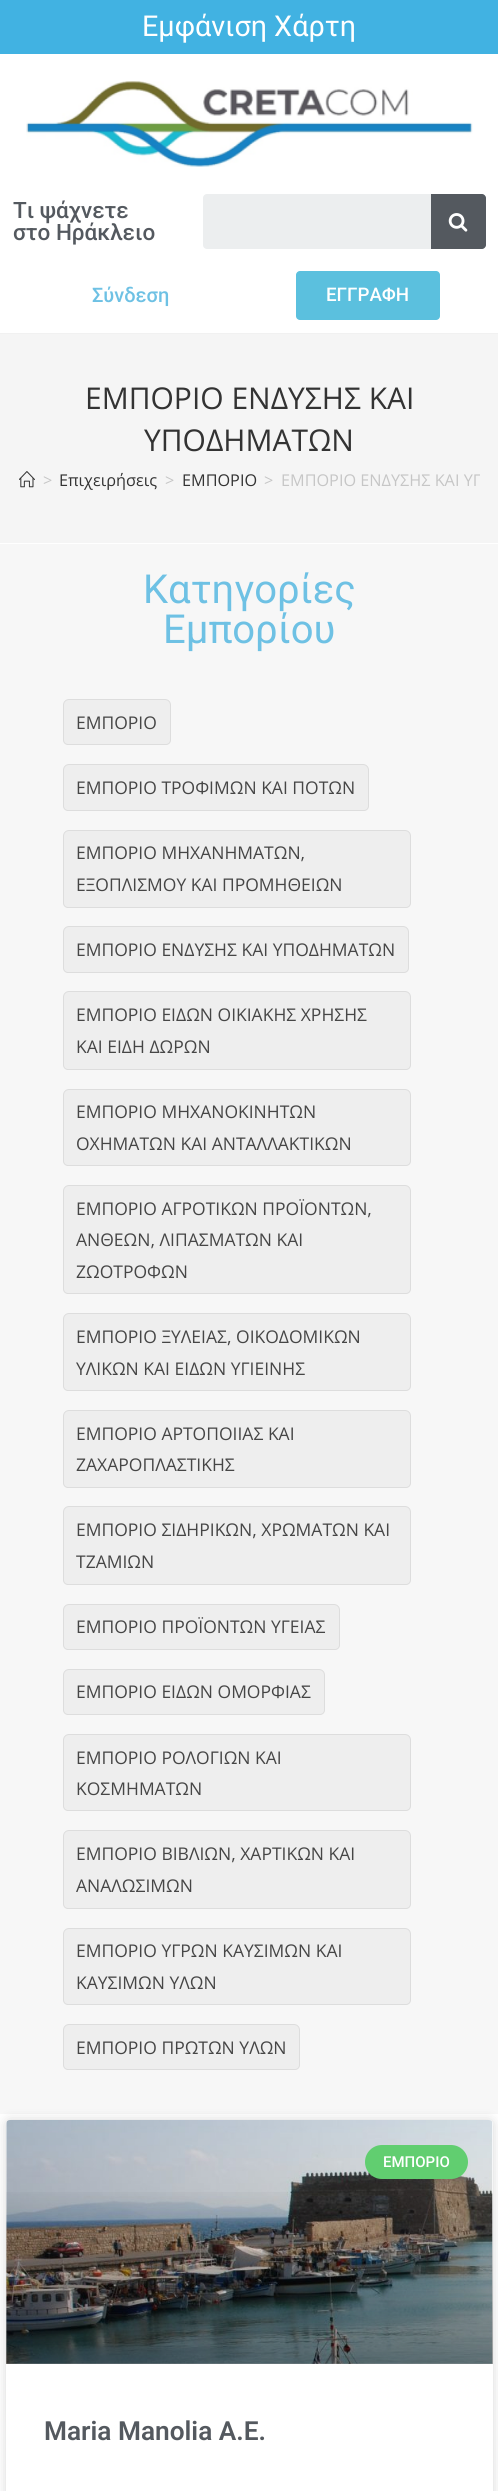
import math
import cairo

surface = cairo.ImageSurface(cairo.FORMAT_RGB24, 498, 2491)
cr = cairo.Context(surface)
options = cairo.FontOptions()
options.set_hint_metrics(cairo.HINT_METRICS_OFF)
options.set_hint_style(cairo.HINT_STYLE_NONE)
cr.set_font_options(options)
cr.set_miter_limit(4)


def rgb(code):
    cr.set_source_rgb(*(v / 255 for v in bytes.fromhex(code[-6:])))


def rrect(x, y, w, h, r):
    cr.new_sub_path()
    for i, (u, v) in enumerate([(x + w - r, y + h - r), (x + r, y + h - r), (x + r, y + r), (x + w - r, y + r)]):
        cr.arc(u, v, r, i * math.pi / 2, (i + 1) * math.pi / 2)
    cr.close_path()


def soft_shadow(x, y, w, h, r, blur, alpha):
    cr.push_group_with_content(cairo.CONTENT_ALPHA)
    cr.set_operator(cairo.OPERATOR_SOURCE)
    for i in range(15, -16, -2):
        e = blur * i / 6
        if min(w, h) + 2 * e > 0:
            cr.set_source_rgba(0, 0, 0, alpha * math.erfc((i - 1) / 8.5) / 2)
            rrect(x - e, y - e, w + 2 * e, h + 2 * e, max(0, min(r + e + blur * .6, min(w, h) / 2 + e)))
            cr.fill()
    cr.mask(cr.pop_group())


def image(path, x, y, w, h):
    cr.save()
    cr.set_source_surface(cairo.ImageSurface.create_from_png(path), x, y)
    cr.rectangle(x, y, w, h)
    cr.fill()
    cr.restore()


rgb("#ffffff")
cr.paint()
rgb("#f1f1f1")
cr.rectangle(0, 333, 498, 1)
cr.fill()
rgb("#41b2e2")
cr.rectangle(0, 0, 498, 54)
cr.fill()
image("img/1.png", 26, 81, 447, 86)
rgb("#eceeef")
rrect(203, 194, 283, 55, 4)
cr.fill()
rgb("#54595f")
cr.new_path()
cr.move_to(431, 194)
cr.line_to(482, 194)
cr.curve_to(484, 194, 486, 196, 486, 198)
cr.line_to(486, 245)
cr.curve_to(486, 247, 484, 249, 482, 249)
cr.line_to(431, 249)
cr.close_path()
cr.fill()
image("img/2.png", 448, 213, 20, 19)
rgb("#5bc0de")
rrect(296, 271, 144, 49, 4)
cr.fill()
rgb("#f5f5f5")
cr.rectangle(0, 334, 498, 209)
cr.fill()
image("img/3.png", 19, 471, 16, 17)
rgb("#f7f7f7")
cr.rectangle(0, 544, 498, 1570)
cr.fill()
rgb("#eeeeee")
cr.new_path()
cr.move_to(69, 699.5)
cr.line_to(165, 699.5)
cr.curve_to(168, 699.5, 170.5, 702, 170.5, 705)
cr.line_to(170.5, 740)
cr.curve_to(170.5, 742.5, 168.5, 744.5, 166, 744.5)
cr.line_to(68, 744.5)
cr.curve_to(65.5, 744.5, 63.5, 742.5, 63.5, 740)
cr.line_to(63.5, 705)
cr.curve_to(63.5, 702, 66, 699.5, 69, 699.5)
cr.close_path()
cr.fill_preserve()
rgb("#dddddd")
cr.set_line_width(1)
cr.stroke()
rgb("#eeeeee")
cr.new_path()
cr.move_to(69, 764.5)
cr.line_to(363, 764.5)
cr.curve_to(366, 764.5, 368.5, 767, 368.5, 770)
cr.line_to(368.5, 806)
cr.curve_to(368.5, 808.5, 366.5, 810.5, 364, 810.5)
cr.line_to(68, 810.5)
cr.curve_to(65.5, 810.5, 63.5, 808.5, 63.5, 806)
cr.line_to(63.5, 770)
cr.curve_to(63.5, 767, 66, 764.5, 69, 764.5)
cr.close_path()
cr.fill_preserve()
rgb("#dddddd")
cr.stroke()
rgb("#eeeeee")
cr.new_path()
cr.move_to(69, 830.5)
cr.line_to(405, 830.5)
cr.curve_to(408, 830.5, 410.5, 833, 410.5, 836)
cr.line_to(410.5, 903)
cr.curve_to(410.5, 905.5, 408.5, 907.5, 406, 907.5)
cr.line_to(68, 907.5)
cr.curve_to(65.5, 907.5, 63.5, 905.5, 63.5, 903)
cr.line_to(63.5, 836)
cr.curve_to(63.5, 833, 66, 830.5, 69, 830.5)
cr.close_path()
cr.fill_preserve()
rgb("#dddddd")
cr.stroke()
rgb("#eeeeee")
cr.new_path()
cr.move_to(69, 926.5)
cr.line_to(403, 926.5)
cr.curve_to(406, 926.5, 408.5, 929, 408.5, 932)
cr.line_to(408.5, 968)
cr.curve_to(408.5, 970.5, 406.5, 972.5, 404, 972.5)
cr.line_to(68, 972.5)
cr.curve_to(65.5, 972.5, 63.5, 970.5, 63.5, 968)
cr.line_to(63.5, 932)
cr.curve_to(63.5, 929, 66, 926.5, 69, 926.5)
cr.close_path()
cr.fill_preserve()
rgb("#dddddd")
cr.stroke()
rgb("#eeeeee")
cr.new_path()
cr.move_to(69, 991.5)
cr.line_to(405, 991.5)
cr.curve_to(408, 991.5, 410.5, 994, 410.5, 997)
cr.line_to(410.5, 1065)
cr.curve_to(410.5, 1067.5, 408.5, 1069.5, 406, 1069.5)
cr.line_to(68, 1069.5)
cr.curve_to(65.5, 1069.5, 63.5, 1067.5, 63.5, 1065)
cr.line_to(63.5, 997)
cr.curve_to(63.5, 994, 66, 991.5, 69, 991.5)
cr.close_path()
cr.fill_preserve()
rgb("#dddddd")
cr.stroke()
rgb("#eeeeee")
cr.new_path()
cr.move_to(69, 1089.5)
cr.line_to(405, 1089.5)
cr.curve_to(408, 1089.5, 410.5, 1092, 410.5, 1095)
cr.line_to(410.5, 1161)
cr.curve_to(410.5, 1163.5, 408.5, 1165.5, 406, 1165.5)
cr.line_to(68, 1165.5)
cr.curve_to(65.5, 1165.5, 63.5, 1163.5, 63.5, 1161)
cr.line_to(63.5, 1095)
cr.curve_to(63.5, 1092, 66, 1089.5, 69, 1089.5)
cr.close_path()
cr.fill_preserve()
rgb("#dddddd")
cr.stroke()
rgb("#eeeeee")
cr.new_path()
cr.move_to(69, 1185.5)
cr.line_to(405, 1185.5)
cr.curve_to(408, 1185.5, 410.5, 1188, 410.5, 1191)
cr.line_to(410.5, 1289)
cr.curve_to(410.5, 1291.5, 408.5, 1293.5, 406, 1293.5)
cr.line_to(68, 1293.5)
cr.curve_to(65.5, 1293.5, 63.5, 1291.5, 63.5, 1289)
cr.line_to(63.5, 1191)
cr.curve_to(63.5, 1188, 66, 1185.5, 69, 1185.5)
cr.close_path()
cr.fill_preserve()
rgb("#dddddd")
cr.stroke()
rgb("#eeeeee")
cr.new_path()
cr.move_to(69, 1313.5)
cr.line_to(405, 1313.5)
cr.curve_to(408, 1313.5, 410.5, 1316, 410.5, 1319)
cr.line_to(410.5, 1386)
cr.curve_to(410.5, 1388.5, 408.5, 1390.5, 406, 1390.5)
cr.line_to(68, 1390.5)
cr.curve_to(65.5, 1390.5, 63.5, 1388.5, 63.5, 1386)
cr.line_to(63.5, 1319)
cr.curve_to(63.5, 1316, 66, 1313.5, 69, 1313.5)
cr.close_path()
cr.fill_preserve()
rgb("#dddddd")
cr.stroke()
rgb("#eeeeee")
cr.new_path()
cr.move_to(69, 1410.5)
cr.line_to(405, 1410.5)
cr.curve_to(408, 1410.5, 410.5, 1413, 410.5, 1416)
cr.line_to(410.5, 1483)
cr.curve_to(410.5, 1485.5, 408.5, 1487.5, 406, 1487.5)
cr.line_to(68, 1487.5)
cr.curve_to(65.5, 1487.5, 63.5, 1485.5, 63.5, 1483)
cr.line_to(63.5, 1416)
cr.curve_to(63.5, 1413, 66, 1410.5, 69, 1410.5)
cr.close_path()
cr.fill_preserve()
rgb("#dddddd")
cr.stroke()
rgb("#eeeeee")
cr.new_path()
cr.move_to(69, 1506.5)
cr.line_to(405, 1506.5)
cr.curve_to(408, 1506.5, 410.5, 1509, 410.5, 1512)
cr.line_to(410.5, 1580)
cr.curve_to(410.5, 1582.5, 408.5, 1584.5, 406, 1584.5)
cr.line_to(68, 1584.5)
cr.curve_to(65.5, 1584.5, 63.5, 1582.5, 63.5, 1580)
cr.line_to(63.5, 1512)
cr.curve_to(63.5, 1509, 66, 1506.5, 69, 1506.5)
cr.close_path()
cr.fill_preserve()
rgb("#dddddd")
cr.stroke()
rgb("#eeeeee")
cr.new_path()
cr.move_to(69, 1604.5)
cr.line_to(334, 1604.5)
cr.curve_to(337, 1604.5, 339.5, 1607, 339.5, 1610)
cr.line_to(339.5, 1645)
cr.curve_to(339.5, 1647.5, 337.5, 1649.5, 335, 1649.5)
cr.line_to(68, 1649.5)
cr.curve_to(65.5, 1649.5, 63.5, 1647.5, 63.5, 1645)
cr.line_to(63.5, 1610)
cr.curve_to(63.5, 1607, 66, 1604.5, 69, 1604.5)
cr.close_path()
cr.fill_preserve()
rgb("#dddddd")
cr.stroke()
rgb("#eeeeee")
cr.new_path()
cr.move_to(69, 1669.5)
cr.line_to(319, 1669.5)
cr.curve_to(322, 1669.5, 324.5, 1672, 324.5, 1675)
cr.line_to(324.5, 1710)
cr.curve_to(324.5, 1712.5, 322.5, 1714.5, 320, 1714.5)
cr.line_to(68, 1714.5)
cr.curve_to(65.5, 1714.5, 63.5, 1712.5, 63.5, 1710)
cr.line_to(63.5, 1675)
cr.curve_to(63.5, 1672, 66, 1669.5, 69, 1669.5)
cr.close_path()
cr.fill_preserve()
rgb("#dddddd")
cr.stroke()
rgb("#eeeeee")
cr.new_path()
cr.move_to(69, 1734.5)
cr.line_to(405, 1734.5)
cr.curve_to(408, 1734.5, 410.5, 1737, 410.5, 1740)
cr.line_to(410.5, 1806)
cr.curve_to(410.5, 1808.5, 408.5, 1810.5, 406, 1810.5)
cr.line_to(68, 1810.5)
cr.curve_to(65.5, 1810.5, 63.5, 1808.5, 63.5, 1806)
cr.line_to(63.5, 1740)
cr.curve_to(63.5, 1737, 66, 1734.5, 69, 1734.5)
cr.close_path()
cr.fill_preserve()
rgb("#dddddd")
cr.stroke()
rgb("#eeeeee")
cr.new_path()
cr.move_to(69, 1830.5)
cr.line_to(405, 1830.5)
cr.curve_to(408, 1830.5, 410.5, 1833, 410.5, 1836)
cr.line_to(410.5, 1904)
cr.curve_to(410.5, 1906.5, 408.5, 1908.5, 406, 1908.5)
cr.line_to(68, 1908.5)
cr.curve_to(65.5, 1908.5, 63.5, 1906.5, 63.5, 1904)
cr.line_to(63.5, 1836)
cr.curve_to(63.5, 1833, 66, 1830.5, 69, 1830.5)
cr.close_path()
cr.fill_preserve()
rgb("#dddddd")
cr.stroke()
rgb("#eeeeee")
cr.new_path()
cr.move_to(69, 1928.5)
cr.line_to(405, 1928.5)
cr.curve_to(408, 1928.5, 410.5, 1931, 410.5, 1934)
cr.line_to(410.5, 2000)
cr.curve_to(410.5, 2002.5, 408.5, 2004.5, 406, 2004.5)
cr.line_to(68, 2004.5)
cr.curve_to(65.5, 2004.5, 63.5, 2002.5, 63.5, 2000)
cr.line_to(63.5, 1934)
cr.curve_to(63.5, 1931, 66, 1928.5, 69, 1928.5)
cr.close_path()
cr.fill_preserve()
rgb("#dddddd")
cr.stroke()
rgb("#eeeeee")
cr.new_path()
cr.move_to(69, 2024.5)
cr.line_to(294, 2024.5)
cr.curve_to(297, 2024.5, 299.5, 2027, 299.5, 2030)
cr.line_to(299.5, 2065)
cr.curve_to(299.5, 2067.5, 297.5, 2069.5, 295, 2069.5)
cr.line_to(68, 2069.5)
cr.curve_to(65.5, 2069.5, 63.5, 2067.5, 63.5, 2065)
cr.line_to(63.5, 2030)
cr.curve_to(63.5, 2027, 66, 2024.5, 69, 2024.5)
cr.close_path()
cr.fill_preserve()
rgb("#dddddd")
cr.stroke()
rgb("#000000")
soft_shadow(6, 2120, 487, 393, 4, 6, 0.15)
rgb("#ffffff")
rrect(6, 2120, 487, 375, 4)
cr.fill()
image("img/4.png", 6, 2120, 487, 244)
gradient = cairo.LinearGradient(249, 2364, 249, 2120)
gradient.add_color_stop_rgba(0, 0, 0, 0, 0.35)
gradient.add_color_stop_rgba(0.75, 0, 0, 0, 0)
cr.set_source(gradient)
cr.rectangle(6, 2192, 487, 172)
cr.fill()
rgb("#61ce70")
rrect(365, 2145, 103, 34, 17)
cr.fill()
cr.select_font_face("Roboto")
cr.set_font_size(28.75)
rgb("#ffffff")
cr.move_to(142, 36)
cr.show_text("Εμφάνιση Χάρτη")
cr.select_font_face("Roboto Medium")
cr.set_font_size(22.5)
rgb("#54595f")
cr.move_to(13, 218)
cr.show_text("Τι ψάχνετε")
cr.move_to(13, 240)
cr.show_text("στο Ηράκλειο")
cr.set_font_size(20)
rgb("#6ec1e4")
cr.move_to(92, 302)
cr.show_text("Σύνδεση")
cr.set_font_size(18.75)
rgb("#ffffff")
cr.move_to(326, 301)
cr.show_text("ΕΓΓΡΑΦΗ")
cr.select_font_face("Open Sans")
cr.set_font_size(30)
rgb("#333333")
cr.move_to(85, 409)
cr.show_text("ΕΜΠΟΡΙΟ ΕΝΔΥΣΗΣ ΚΑΙ")
cr.move_to(144, 451)
cr.show_text("ΥΠΟΔΗΜΑΤΩΝ")
cr.set_font_size(16.25)
rgb("#c6c6c6")
cr.move_to(43, 486)
cr.show_text(">")
rgb("#333333")
cr.move_to(59, 486)
cr.show_text("Επιχειρήσεις")
rgb("#c6c6c6")
cr.move_to(165, 486)
cr.show_text(">")
rgb("#333333")
cr.move_to(182, 486)
cr.show_text("ΕΜΠΟΡΙΟ")
rgb("#c6c6c6")
cr.move_to(264, 486)
cr.show_text(">")
cr.save()
cr.rectangle(19, 460, 461, 40)
cr.clip()
cr.move_to(281, 486)
cr.show_text("ΕΜΠΟΡΙΟ ΕΝΔΥΣΗΣ ΚΑΙ ΥΠ")
cr.restore()
cr.select_font_face("Roboto")
cr.set_font_size(40)
rgb("#6ec1e4")
cr.move_to(143, 603)
cr.show_text("Κατηγορίες")
cr.move_to(163, 643)
cr.show_text("Εμπορίου")
cr.select_font_face("Open Sans")
cr.set_font_size(17.5)
rgb("#464646")
for x, y, s in [
    (76, 729, "ΕΜΠΟΡΙΟ"),
    (76, 794, "ΕΜΠΟΡΙΟ ΤΡΟΦΙΜΩΝ ΚΑΙ ΠΟΤΩΝ"),
    (76, 859, "ΕΜΠΟΡΙΟ ΜΗΧΑΝΗΜΑΤΩΝ,"),
    (76, 891, "ΕΞΟΠΛΙΣΜΟΥ ΚΑΙ ΠΡΟΜΗΘΕΙΩΝ"),
    (76, 956, "ΕΜΠΟΡΙΟ ΕΝΔΥΣΗΣ ΚΑΙ ΥΠΟΔΗΜΑΤΩΝ"),
    (76, 1021, "ΕΜΠΟΡΙΟ ΕΙΔΩΝ ΟΙΚΙΑΚΗΣ ΧΡΗΣΗΣ"),
    (76, 1053, "ΚΑΙ ΕΙΔΗ ΔΩΡΩΝ"),
    (76, 1118, "ΕΜΠΟΡΙΟ ΜΗΧΑΝΟΚΙΝΗΤΩΝ"),
    (76, 1150, "ΟΧΗΜΑΤΩΝ ΚΑΙ ΑΝΤΑΛΛΑΚΤΙΚΩΝ"),
    (76, 1215, "ΕΜΠΟΡΙΟ ΑΓΡΟΤΙΚΩΝ ΠΡΟΪΟΝΤΩΝ,"),
    (76, 1246, "ΑΝΘΕΩΝ, ΛΙΠΑΣΜΑΤΩΝ ΚΑΙ"),
    (76, 1278, "ΖΩΟΤΡΟΦΩΝ"),
    (76, 1343, "ΕΜΠΟΡΙΟ ΞΥΛΕΙΑΣ, ΟΙΚΟΔΟΜΙΚΩΝ"),
    (76, 1375, "ΥΛΙΚΩΝ ΚΑΙ ΕΙΔΩΝ ΥΓΙΕΙΝΗΣ"),
    (76, 1440, "ΕΜΠΟΡΙΟ ΑΡΤΟΠΟΙΙΑΣ ΚΑΙ"),
    (76, 1471, "ΖΑΧΑΡΟΠΛΑΣΤΙΚΗΣ"),
    (76, 1536, "ΕΜΠΟΡΙΟ ΣΙΔΗΡΙΚΩΝ, ΧΡΩΜΑΤΩΝ ΚΑΙ"),
    (76, 1568, "ΤΖΑΜΙΩΝ"),
    (76, 1633, "ΕΜΠΟΡΙΟ ΠΡΟΪΟΝΤΩΝ ΥΓΕΙΑΣ"),
    (76, 1698, "ΕΜΠΟΡΙΟ ΕΙΔΩΝ ΟΜΟΡΦΙΑΣ"),
    (76, 1764, "ΕΜΠΟΡΙΟ ΡΟΛΟΓΙΩΝ ΚΑΙ"),
    (76, 1795, "ΚΟΣΜΗΜΑΤΩΝ"),
    (76, 1860, "ΕΜΠΟΡΙΟ ΒΙΒΛΙΩΝ, ΧΑΡΤΙΚΩΝ ΚΑΙ"),
    (76, 1892, "ΑΝΑΛΩΣΙΜΩΝ"),
    (76, 1957, "ΕΜΠΟΡΙΟ ΥΓΡΩΝ ΚΑΥΣΙΜΩΝ ΚΑΙ"),
    (76, 1989, "ΚΑΥΣΙΜΩΝ ΥΛΩΝ"),
    (76, 2054, "ΕΜΠΟΡΙΟ ΠΡΩΤΩΝ ΥΛΩΝ"),
]:
    cr.move_to(x, y)
    cr.show_text(s)
cr.select_font_face("Roboto Medium")
cr.set_font_size(15)
rgb("#ffffff")
cr.move_to(383, 2167)
cr.show_text("ΕΜΠΟΡΙΟ")
cr.select_font_face("Roboto SemiBold")
cr.set_font_size(26.25)
rgb("#54595f")
cr.move_to(44, 2440)
cr.show_text("Maria Manolia A.E.")
surface.write_to_png("page.png")
